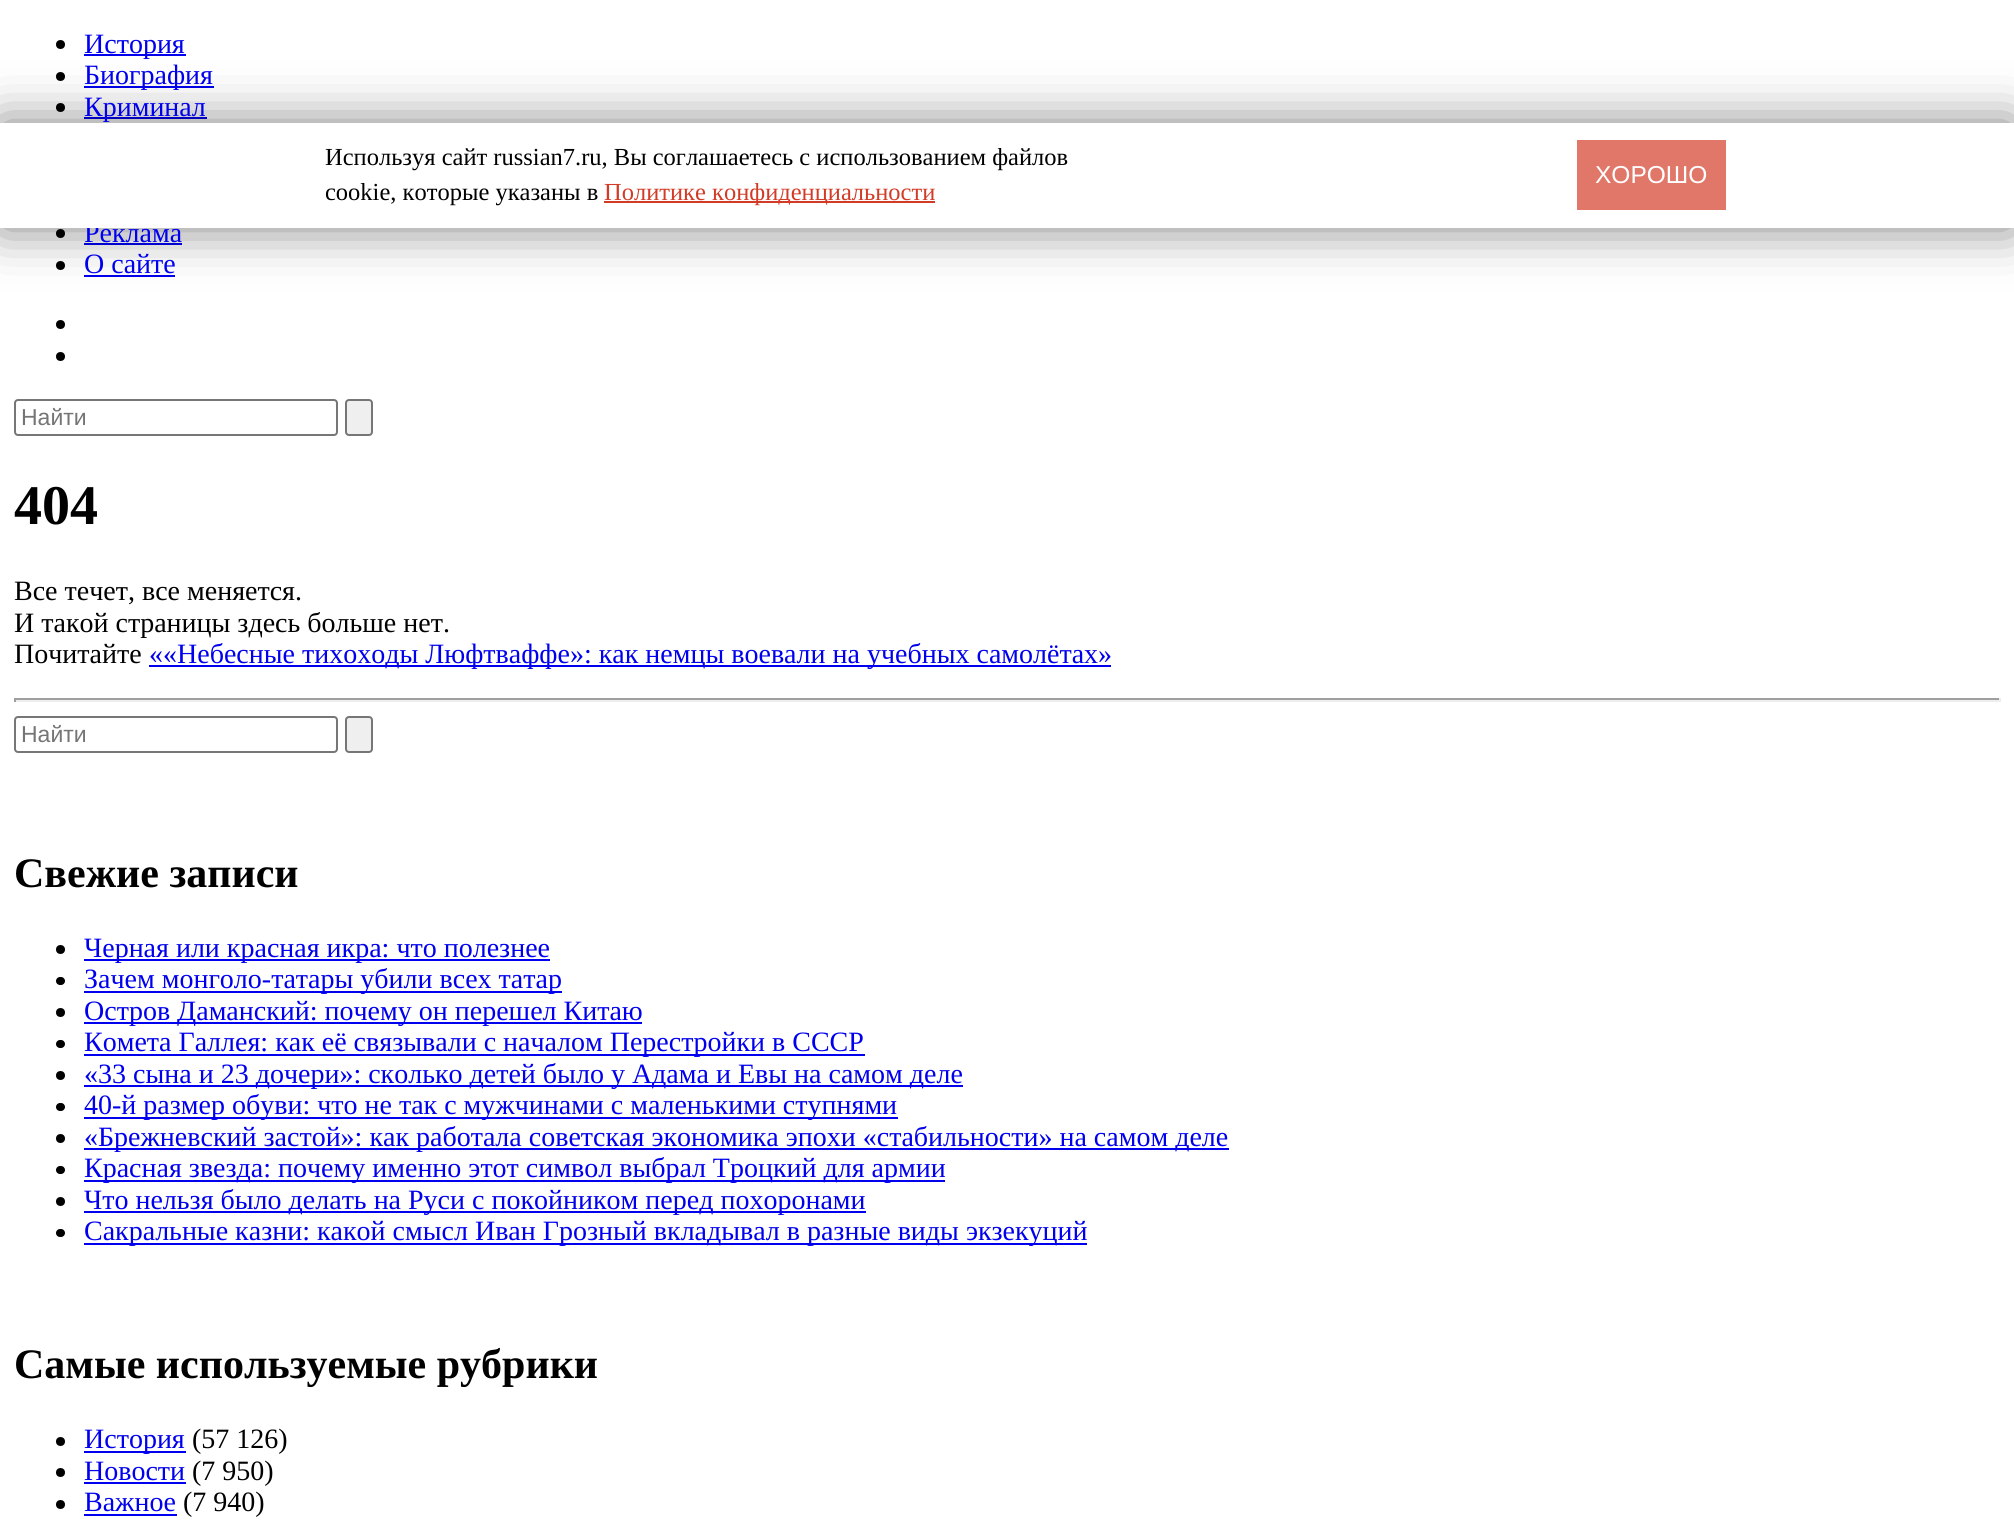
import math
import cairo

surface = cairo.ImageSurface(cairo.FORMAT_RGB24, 2014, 1528)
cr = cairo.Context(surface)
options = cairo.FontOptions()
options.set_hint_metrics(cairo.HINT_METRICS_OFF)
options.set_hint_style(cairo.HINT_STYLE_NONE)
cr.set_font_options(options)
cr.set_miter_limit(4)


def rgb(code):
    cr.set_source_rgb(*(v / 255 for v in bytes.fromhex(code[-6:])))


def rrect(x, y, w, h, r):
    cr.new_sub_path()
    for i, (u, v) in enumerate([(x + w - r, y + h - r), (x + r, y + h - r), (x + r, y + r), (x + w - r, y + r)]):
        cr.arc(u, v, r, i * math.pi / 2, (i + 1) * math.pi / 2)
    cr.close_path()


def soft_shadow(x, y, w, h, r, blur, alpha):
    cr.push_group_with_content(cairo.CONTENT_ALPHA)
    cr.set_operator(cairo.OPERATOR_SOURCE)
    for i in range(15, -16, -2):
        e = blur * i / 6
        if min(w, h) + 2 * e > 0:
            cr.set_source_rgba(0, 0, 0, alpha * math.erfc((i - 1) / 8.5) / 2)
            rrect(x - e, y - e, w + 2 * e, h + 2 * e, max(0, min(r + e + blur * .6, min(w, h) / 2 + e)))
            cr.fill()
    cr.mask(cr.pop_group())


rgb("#ffffff")
cr.paint()
rgb("#000000")
cr.arc(60.5, 44.5, 4.5, 0, 2 * math.pi)
cr.fill()
rgb("#0000ee")
cr.rectangle(84, 54, 102, 2)
cr.fill()
rgb("#000000")
cr.arc(60.5, 76.5, 4.5, 0, 2 * math.pi)
cr.fill()
rgb("#0000ee")
cr.rectangle(84, 86, 130, 2)
cr.fill()
rgb("#000000")
cr.arc(60.5, 107.5, 4.5, 0, 2 * math.pi)
cr.fill()
rgb("#0000ee")
cr.rectangle(84, 117, 123, 2)
cr.fill()
rgb("#000000")
cr.arc(60.5, 233.5, 4.5, 0, 2 * math.pi)
cr.fill()
rgb("#0000ee")
cr.rectangle(84, 243, 98, 2)
cr.fill()
rgb("#000000")
cr.arc(60.5, 265.5, 4.5, 0, 2 * math.pi)
cr.fill()
rgb("#0000ee")
cr.rectangle(84, 275, 91, 2)
cr.fill()
rgb("#000000")
cr.arc(60.5, 324.5, 4.5, 0, 2 * math.pi)
cr.fill()
cr.arc(60.5, 356.5, 4.5, 0, 2 * math.pi)
cr.fill()
rrect(15, 400, 322, 35, 3)
rgb("#767676")
cr.stroke()
rgb("#efefef")
rrect(346, 400, 26, 35, 3)
cr.fill_preserve()
rgb("#767676")
cr.stroke()
rgb("#000000")
soft_shadow(0, 123, 2014, 105, 0, 26, 0.5)
for x, y, w, h, color in [
    (149, 665, 962, 2, "#0000ee"),
    (14, 698, 1986, 2, "#9f9f9f"),
    (1999, 698, 2, 4, "#eeeeee"),
    (14, 700, 1986, 2, "#eeeeee"),
    (14, 698, 2, 4, "#9f9f9f"),
]:
    rgb(color)
    cr.rectangle(x, y, w, h)
    cr.fill()
rrect(15, 717, 322, 35, 3)
rgb("#767676")
cr.stroke()
rgb("#efefef")
rrect(346, 717, 26, 35, 3)
cr.fill_preserve()
rgb("#767676")
cr.stroke()
rgb("#000000")
cr.arc(60.5, 949.5, 4.5, 0, 2 * math.pi)
cr.fill()
rgb("#0000ee")
cr.rectangle(84, 959, 466, 2)
cr.fill()
rgb("#000000")
rrect(56, 977, 9, 8, 4)
cr.fill()
rgb("#0000ee")
cr.rectangle(84, 991, 478, 2)
cr.fill()
rgb("#000000")
cr.arc(60.5, 1012.5, 4.5, 0, 2 * math.pi)
cr.fill()
rgb("#0000ee")
cr.rectangle(84, 1022, 558, 2)
cr.fill()
rgb("#000000")
rrect(56, 1040, 9, 8, 4)
cr.fill()
rgb("#0000ee")
cr.rectangle(84, 1054, 781, 2)
cr.fill()
rgb("#000000")
cr.arc(60.5, 1075.5, 4.5, 0, 2 * math.pi)
cr.fill()
rgb("#0000ee")
cr.rectangle(84, 1085, 879, 2)
cr.fill()
rgb("#000000")
rrect(56, 1103, 9, 8, 4)
cr.fill()
rgb("#0000ee")
cr.rectangle(84, 1117, 814, 2)
cr.fill()
rgb("#000000")
cr.arc(60.5, 1138.5, 4.5, 0, 2 * math.pi)
cr.fill()
rgb("#0000ee")
cr.rectangle(84, 1148, 1145, 2)
cr.fill()
rgb("#000000")
rrect(56, 1166, 9, 8, 4)
cr.fill()
rgb("#0000ee")
cr.rectangle(84, 1180, 861, 2)
cr.fill()
rgb("#000000")
cr.arc(60.5, 1201.5, 4.5, 0, 2 * math.pi)
cr.fill()
rgb("#0000ee")
cr.rectangle(84, 1211, 782, 2)
cr.fill()
rgb("#000000")
rrect(56, 1229, 9, 8, 4)
cr.fill()
rgb("#0000ee")
cr.rectangle(84, 1243, 1003, 2)
cr.fill()
rgb("#000000")
cr.arc(60.5, 1441.5, 4.5, 0, 2 * math.pi)
cr.fill()
rgb("#0000ee")
cr.rectangle(84, 1451, 102, 2)
cr.fill()
rgb("#000000")
cr.arc(60.5, 1472.5, 4.5, 0, 2 * math.pi)
cr.fill()
rgb("#0000ee")
cr.rectangle(84, 1482, 102, 2)
cr.fill()
rgb("#000000")
cr.arc(60.5, 1504.5, 4.5, 0, 2 * math.pi)
cr.fill()
rgb("#0000ee")
cr.rectangle(84, 1514, 93, 2)
cr.fill()
cr.select_font_face("Liberation Serif")
cr.set_font_size(28)
for x, y, s in [
    (84, 53, "История"),
    (84, 84, "Биография"),
    (84, 116, "Криминал"),
    (84, 242, "Реклама"),
    (84, 273, "О сайте"),
]:
    cr.move_to(x, y)
    cr.show_text(s)
cr.select_font_face("Liberation Sans")
cr.set_font_size(23)
rgb("#757575")
cr.move_to(21, 425)
cr.show_text("Найти")
rgb("#ffffff")
cr.rectangle(0, 123, 2014, 105)
cr.fill()
cr.select_font_face("Liberation Serif")
cr.set_font_size(24.5)
rgb("#000000")
cr.move_to(325, 165)
cr.show_text("Используя сайт russian7.ru, Вы соглашаетесь с использованием файлов")
cr.move_to(325, 200)
cr.show_text("cookie, которые указаны в")
rgb("#d23c27")
cr.rectangle(604, 201, 331, 2)
cr.fill()
cr.move_to(604, 200)
cr.show_text("Политике конфиденциальности")
rgb("#e07768")
cr.rectangle(1577, 140, 149, 70)
cr.fill()
cr.select_font_face("Liberation Sans")
rgb("#ffffff")
cr.move_to(1595, 183)
cr.show_text("ХОРОШО")
cr.select_font_face("Liberation Serif", cairo.FONT_SLANT_NORMAL, cairo.FONT_WEIGHT_BOLD)
cr.set_font_size(56)
rgb("#000000")
cr.move_to(14, 524)
cr.show_text("404")
cr.select_font_face("Liberation Serif")
cr.set_font_size(28)
for x, y, s in [
    (14, 600, "Все течет, все меняется."),
    (14, 632, "И такой страницы здесь больше нет."),
    (14, 663, "Почитайте"),
]:
    cr.move_to(x, y)
    cr.show_text(s)
rgb("#0000ee")
cr.move_to(149, 663)
cr.show_text("««Небесные тихоходы Люфтваффе»: как немцы воевали на учебных самолётах»")
cr.select_font_face("Liberation Sans")
cr.set_font_size(23)
rgb("#757575")
cr.move_to(21, 742)
cr.show_text("Найти")
cr.select_font_face("Liberation Serif", cairo.FONT_SLANT_NORMAL, cairo.FONT_WEIGHT_BOLD)
cr.set_font_size(42)
rgb("#000000")
cr.move_to(14, 887)
cr.show_text("Свежие записи")
cr.select_font_face("Liberation Serif")
cr.set_font_size(28)
rgb("#0000ee")
for x, y, s in [
    (84, 957, "Черная или красная икра: что полезнее"),
    (84, 988, "Зачем монголо-татары убили всех татар"),
    (84, 1020, "Остров Даманский: почему он перешел Китаю"),
    (84, 1051, "Комета Галлея: как её связывали с началом Перестройки в СССР"),
    (84, 1083, "«33 сына и 23 дочери»: сколько детей было у Адама и Евы на самом деле"),
    (84, 1114, "40-й размер обуви: что не так с мужчинами с маленькими ступнями"),
    (84, 1146, "«Брежневский застой»: как работала советская экономика эпохи «стабильности» на самом деле"),
    (84, 1177, "Красная звезда: почему именно этот символ выбрал Троцкий для армии"),
    (84, 1209, "Что нельзя было делать на Руси с покойником перед похоронами"),
    (84, 1240, "Сакральные казни: какой смысл Иван Грозный вкладывал в разные виды экзекуций"),
]:
    cr.move_to(x, y)
    cr.show_text(s)
cr.select_font_face("Liberation Serif", cairo.FONT_SLANT_NORMAL, cairo.FONT_WEIGHT_BOLD)
cr.set_font_size(42)
rgb("#000000")
cr.move_to(14, 1378)
cr.show_text("Самые используемые рубрики")
cr.select_font_face("Liberation Serif")
cr.set_font_size(28)
rgb("#0000ee")
cr.move_to(84, 1448)
cr.show_text("История")
rgb("#000000")
cr.move_to(192, 1448)
cr.show_text("(57 126)")
rgb("#0000ee")
cr.move_to(84, 1480)
cr.show_text("Новости")
rgb("#000000")
cr.move_to(192, 1480)
cr.show_text("(7 950)")
rgb("#0000ee")
cr.move_to(84, 1511)
cr.show_text("Важное")
rgb("#000000")
cr.move_to(183, 1511)
cr.show_text("(7 940)")
surface.write_to_png("page.png")
